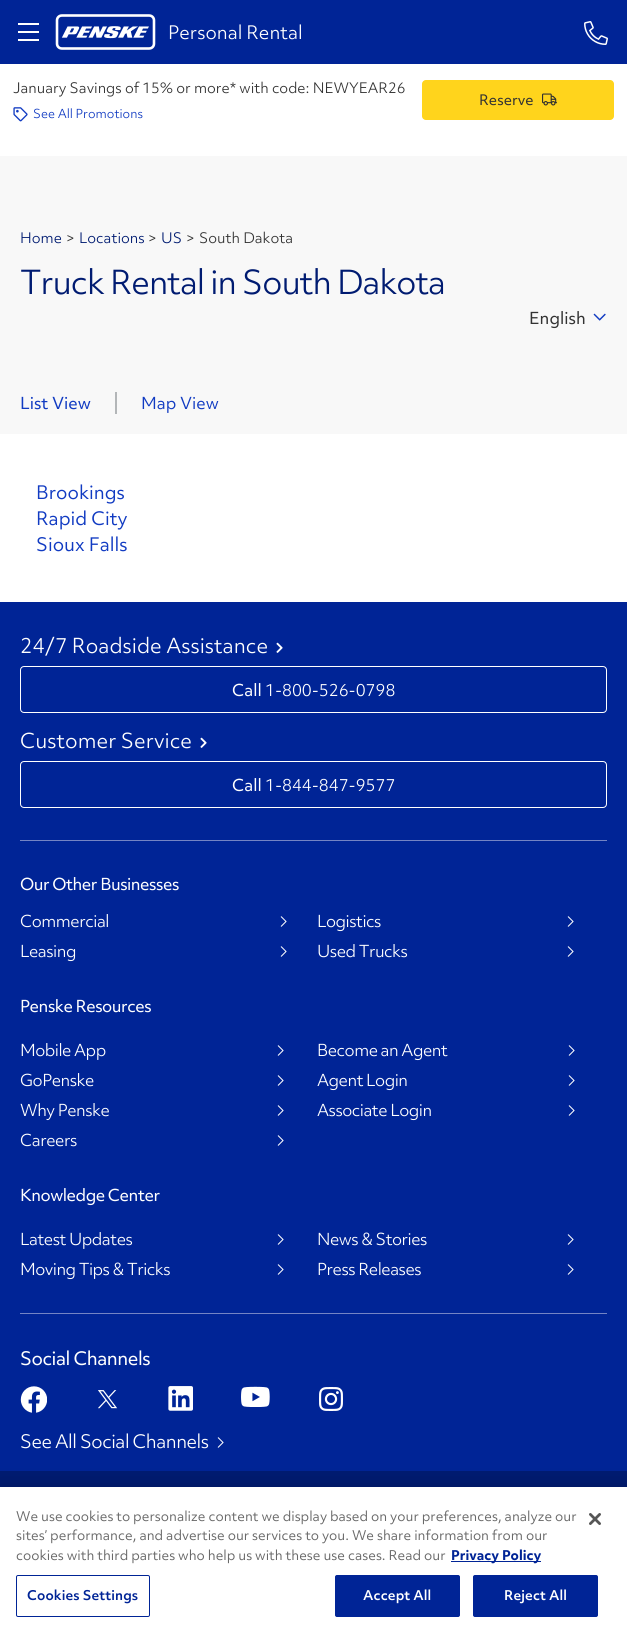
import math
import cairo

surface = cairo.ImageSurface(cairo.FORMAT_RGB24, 627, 1638)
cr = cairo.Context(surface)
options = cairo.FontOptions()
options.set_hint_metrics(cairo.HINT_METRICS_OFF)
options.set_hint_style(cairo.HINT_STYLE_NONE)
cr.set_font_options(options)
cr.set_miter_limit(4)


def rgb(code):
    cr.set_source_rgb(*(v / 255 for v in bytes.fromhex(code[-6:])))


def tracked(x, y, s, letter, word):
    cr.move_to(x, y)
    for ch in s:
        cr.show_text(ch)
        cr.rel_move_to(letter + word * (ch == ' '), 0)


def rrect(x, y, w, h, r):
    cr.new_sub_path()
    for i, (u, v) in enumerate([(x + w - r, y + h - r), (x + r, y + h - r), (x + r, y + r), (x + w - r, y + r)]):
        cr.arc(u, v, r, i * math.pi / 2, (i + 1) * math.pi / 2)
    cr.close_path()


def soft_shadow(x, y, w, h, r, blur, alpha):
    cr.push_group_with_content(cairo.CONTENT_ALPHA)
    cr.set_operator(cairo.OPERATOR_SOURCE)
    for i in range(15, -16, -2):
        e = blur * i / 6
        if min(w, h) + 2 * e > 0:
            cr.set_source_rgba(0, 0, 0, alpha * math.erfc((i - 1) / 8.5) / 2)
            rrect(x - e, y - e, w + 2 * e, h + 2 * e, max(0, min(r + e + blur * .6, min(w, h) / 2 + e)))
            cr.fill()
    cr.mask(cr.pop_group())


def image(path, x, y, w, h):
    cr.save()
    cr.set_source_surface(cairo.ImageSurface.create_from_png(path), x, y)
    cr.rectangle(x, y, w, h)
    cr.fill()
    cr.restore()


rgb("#ffffff")
cr.paint()
for x, y, w, h, color in [
    (0, 0, 627, 64, "#002496"),
    (18, 23, 21, 2, "#ffffff"),
    (18, 31, 21, 2, "#ffffff"),
    (18, 39, 21, 2, "#ffffff"),
]:
    rgb(color)
    cr.rectangle(x, y, w, h)
    cr.fill()
image("img/1.png", 55, 14, 101, 36)
image("img/2.png", 584, 21, 24, 24)
image("img/3.png", 13, 107, 15, 15)
rgb("#ffd41c")
rrect(422, 80, 192, 40, 4)
cr.fill()
image("img/4.png", 542, 93, 15, 13)
rgb("#f8f8f8")
cr.rectangle(0, 156, 627, 278)
cr.fill()
image("img/5.png", 593, 313, 13, 8)
for x, y, w, h, color in [
    (115, 392, 2, 22, "#b3b6b8"),
    (0, 602, 627, 869, "#002496"),
    (20, 840, 587, 1, "#7484c4"),
]:
    rgb(color)
    cr.rectangle(x, y, w, h)
    cr.fill()
image("img/6.png", 276, 642, 7, 11)
rrect(20.5, 666.5, 586, 46, 3.5)
rgb("#ffffff")
cr.set_line_width(1)
cr.stroke()
image("img/6.png", 200, 737, 7, 11)
rrect(20.5, 761.5, 586, 46, 3.5)
cr.stroke()
rgb("#7484c4")
cr.rectangle(20, 1313, 587, 1)
cr.fill()
cr.new_path()
cr.move_to(281, 916.5)
cr.line_to(286, 921.5)
cr.line_to(281, 926.5)
rgb("#ffffff")
cr.stroke()
cr.new_path()
cr.move_to(281, 946.5)
cr.line_to(286, 951.5)
cr.line_to(281, 956.5)
cr.stroke()
cr.new_path()
cr.move_to(568, 916.5)
cr.line_to(573, 921.5)
cr.line_to(568, 926.5)
cr.stroke()
cr.new_path()
cr.move_to(568, 946.5)
cr.line_to(573, 951.5)
cr.line_to(568, 956.5)
cr.stroke()
cr.new_path()
cr.move_to(278, 1045.5)
cr.line_to(283, 1050.5)
cr.line_to(278, 1055.5)
cr.stroke()
cr.new_path()
cr.move_to(278, 1075.5)
cr.line_to(283, 1080.5)
cr.line_to(278, 1085.5)
cr.stroke()
cr.new_path()
cr.move_to(278, 1105.5)
cr.line_to(283, 1110.5)
cr.line_to(278, 1115.5)
cr.stroke()
cr.new_path()
cr.move_to(278, 1135.5)
cr.line_to(283, 1140.5)
cr.line_to(278, 1145.5)
cr.stroke()
cr.new_path()
cr.move_to(569, 1045.5)
cr.line_to(574, 1050.5)
cr.line_to(569, 1055.5)
cr.stroke()
cr.new_path()
cr.move_to(569, 1075.5)
cr.line_to(574, 1080.5)
cr.line_to(569, 1085.5)
cr.stroke()
cr.new_path()
cr.move_to(569, 1105.5)
cr.line_to(574, 1110.5)
cr.line_to(569, 1115.5)
cr.stroke()
cr.new_path()
cr.move_to(278, 1234.5)
cr.line_to(283, 1239.5)
cr.line_to(278, 1244.5)
cr.stroke()
cr.new_path()
cr.move_to(278, 1264.5)
cr.line_to(283, 1269.5)
cr.line_to(278, 1274.5)
cr.stroke()
cr.new_path()
cr.move_to(568, 1234.5)
cr.line_to(573, 1239.5)
cr.line_to(568, 1244.5)
cr.stroke()
cr.new_path()
cr.move_to(568, 1264.5)
cr.line_to(573, 1269.5)
cr.line_to(568, 1274.5)
cr.stroke()
image("img/7.png", 20, 1386, 27, 27)
image("img/8.png", 98, 1390, 20, 19)
image("img/9.png", 168, 1386, 25, 25)
image("img/10.png", 241, 1386, 29, 21)
image("img/11.png", 319, 1387, 24, 24)
cr.new_path()
cr.move_to(218, 1437.5)
cr.line_to(223, 1442.5)
cr.line_to(218, 1447.5)
cr.stroke()
rgb("#001b71")
cr.rectangle(0, 1471, 627, 16)
cr.fill()
rgb("#000000")
soft_shadow(0, 1487, 627, 151, 0, 9, 0.2)
rgb("#ffffff")
cr.rectangle(0, 1487, 627, 151)
cr.fill()
rgb("#002496")
cr.rectangle(451, 1561, 90, 1)
cr.fill()
rrect(16.5, 1575.5, 133, 41, 1.5)
cr.stroke()
rrect(335.5, 1575.5, 124, 41, 1.5)
cr.fill_preserve()
cr.stroke()
rrect(473.5, 1575.5, 124, 41, 1.5)
cr.fill_preserve()
cr.stroke()
image("img/12.png", 589, 1513, 12, 12)
cr.select_font_face("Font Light")
cr.set_font_size(18)
rgb("#ffffff")
cr.move_to(168, 39)
cr.show_text("Personal Rental")
cr.set_font_size(14)
rgb("#333333")
cr.move_to(13, 93)
cr.show_text("January Savings of 15% or more* with code: NEWYEAR26")
cr.set_font_size(12)
rgb("#113bc2")
cr.move_to(33, 118)
cr.show_text("See All Promotions")
cr.select_font_face("Font Medium")
cr.set_font_size(14)
rgb("#333333")
cr.move_to(479, 105)
cr.show_text("Reserve")
cr.select_font_face("Font Light")
rgb("#001b71")
cr.move_to(20, 243)
cr.show_text("Home")
rgb("#333333")
cr.move_to(66, 243)
cr.show_text(">")
rgb("#001b71")
cr.move_to(79, 243)
cr.show_text("Locations")
rgb("#333333")
cr.move_to(148, 243)
cr.show_text(">")
rgb("#001b71")
cr.move_to(161, 243)
cr.show_text("US")
rgb("#333333")
cr.move_to(186, 243)
cr.show_text(">")
cr.move_to(199, 243)
cr.show_text("South Dakota")
cr.set_font_size(32)
rgb("#001b71")
tracked(20, 294, "Truck Rental in South Dakota", -1, 0)
cr.select_font_face("Font Medium")
cr.set_font_size(16)
rgb("#333333")
cr.move_to(529, 324)
cr.show_text("English")
rgb("#113bc2")
cr.move_to(20, 409)
cr.show_text("List View")
cr.select_font_face("Font")
cr.move_to(141, 409)
cr.show_text("Map View")
cr.set_font_size(18)
for x, y, s in [
    (36, 499, "Brookings"),
    (36, 525, "Rapid City"),
    (36, 551, "Sioux Falls"),
]:
    cr.move_to(x, y)
    cr.show_text(s)
cr.select_font_face("Font Light")
cr.set_font_size(20)
rgb("#ffffff")
cr.move_to(20, 653)
cr.show_text("24/7 Roadside Assistance")
cr.select_font_face("Font Medium")
cr.set_font_size(16)
cr.move_to(232, 696)
cr.show_text("Call")
cr.select_font_face("Font Light")
cr.move_to(265, 696)
cr.show_text("1-800-526-0798")
cr.set_font_size(20)
cr.move_to(20, 748)
cr.show_text("Customer Service")
cr.select_font_face("Font Medium")
cr.set_font_size(16)
cr.move_to(232, 791)
cr.show_text("Call")
cr.select_font_face("Font Light")
cr.move_to(265, 791)
cr.show_text("1-844-847-9577")
cr.select_font_face("Font Medium")
tracked(20, 890, "Our Other Businesses", -0.5, 0)
cr.select_font_face("Font Light")
for x, y, s in [
    (20, 927, "Commercial"),
    (20, 957, "Leasing"),
    (317, 927, "Logistics"),
    (317, 957, "Used Trucks"),
]:
    tracked(x, y, s, -0.5, 0)
cr.select_font_face("Font Medium")
tracked(20, 1012, "Penske Resources", -0.5, 0)
cr.select_font_face("Font Light")
for x, y, s in [
    (20, 1056, "Mobile App"),
    (20, 1086, "GoPenske"),
    (20, 1116, "Why Penske"),
    (20, 1146, "Careers"),
    (317, 1056, "Become an Agent"),
    (317, 1086, "Agent Login"),
    (317, 1116, "Associate Login"),
]:
    tracked(x, y, s, -0.5, 0)
cr.select_font_face("Font Medium")
tracked(20, 1201, "Knowledge Center", -0.5, 0)
cr.select_font_face("Font Light")
for x, y, s in [
    (20, 1245, "Latest Updates"),
    (20, 1275, "Moving Tips & Tricks"),
    (317, 1245, "News & Stories"),
    (317, 1275, "Press Releases"),
]:
    tracked(x, y, s, -0.5, 0)
cr.select_font_face("Font Medium")
cr.set_font_size(18)
tracked(20, 1365, "Social Channels", -0.5, 0)
cr.select_font_face("Font Light")
tracked(20, 1448, "See All Social Channels", -0.5, 0)
cr.select_font_face("Font")
cr.set_font_size(13)
rgb("#696969")
for x, y, s in [
    (16, 1521, "We use cookies to personalize content we display based on your preferences, analyze our"),
    (16, 1540, "sites’ performance, and advertise our services to you. We share information from our"),
    (16, 1560, "cookies with third parties who help us with these use cases. Read our"),
]:
    cr.move_to(x, y)
    cr.show_text(s)
cr.select_font_face("Font", cairo.FONT_SLANT_NORMAL, cairo.FONT_WEIGHT_BOLD)
rgb("#002496")
cr.move_to(451, 1560)
cr.show_text("Privacy Policy")
cr.select_font_face("Font SemiBold")
tracked(27, 1600, "Cookies Settings", 0.1, 0)
rgb("#ffffff")
tracked(363, 1600, "Accept All", 0.1, 0)
tracked(504, 1600, "Reject All", 0.1, 0)
surface.write_to_png("page.png")
